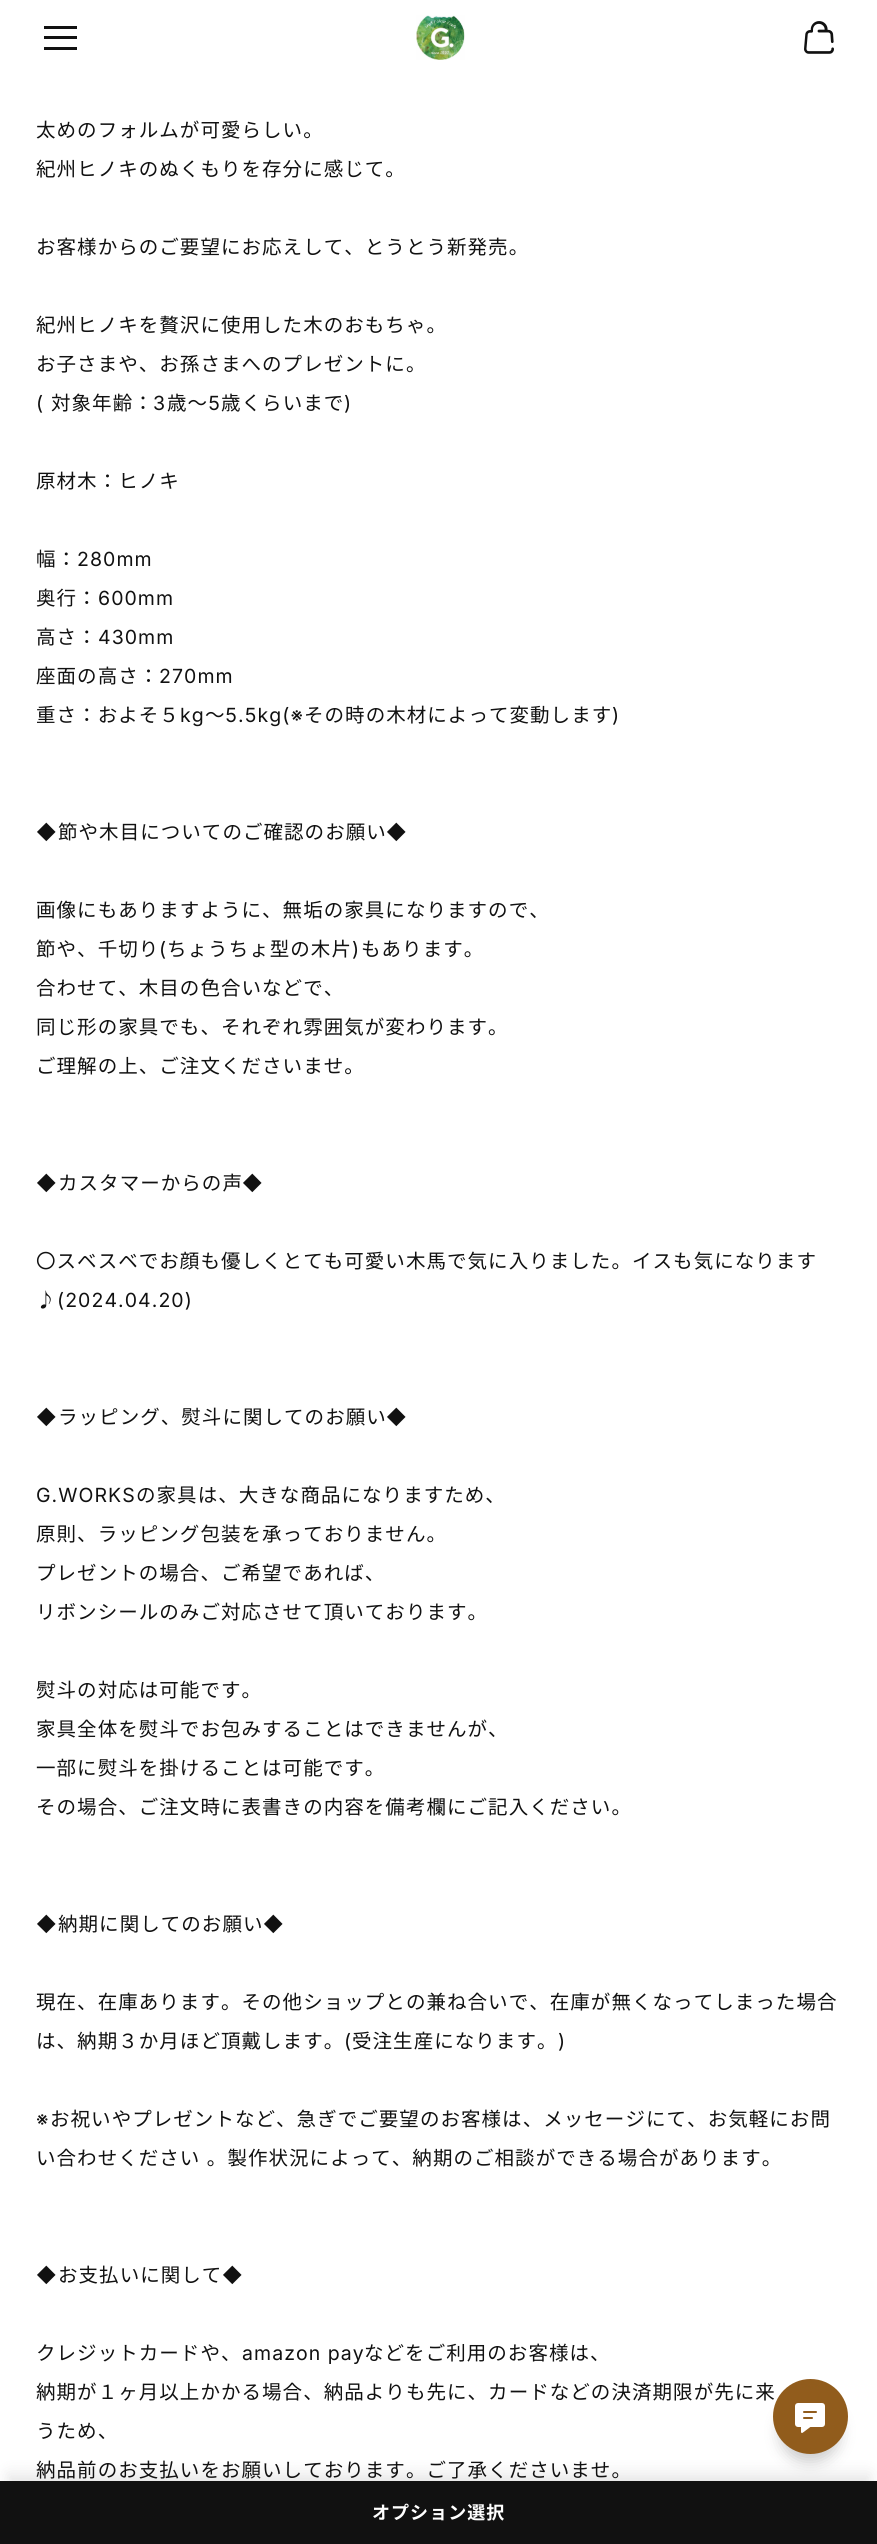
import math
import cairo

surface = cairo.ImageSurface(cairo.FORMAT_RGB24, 877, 2544)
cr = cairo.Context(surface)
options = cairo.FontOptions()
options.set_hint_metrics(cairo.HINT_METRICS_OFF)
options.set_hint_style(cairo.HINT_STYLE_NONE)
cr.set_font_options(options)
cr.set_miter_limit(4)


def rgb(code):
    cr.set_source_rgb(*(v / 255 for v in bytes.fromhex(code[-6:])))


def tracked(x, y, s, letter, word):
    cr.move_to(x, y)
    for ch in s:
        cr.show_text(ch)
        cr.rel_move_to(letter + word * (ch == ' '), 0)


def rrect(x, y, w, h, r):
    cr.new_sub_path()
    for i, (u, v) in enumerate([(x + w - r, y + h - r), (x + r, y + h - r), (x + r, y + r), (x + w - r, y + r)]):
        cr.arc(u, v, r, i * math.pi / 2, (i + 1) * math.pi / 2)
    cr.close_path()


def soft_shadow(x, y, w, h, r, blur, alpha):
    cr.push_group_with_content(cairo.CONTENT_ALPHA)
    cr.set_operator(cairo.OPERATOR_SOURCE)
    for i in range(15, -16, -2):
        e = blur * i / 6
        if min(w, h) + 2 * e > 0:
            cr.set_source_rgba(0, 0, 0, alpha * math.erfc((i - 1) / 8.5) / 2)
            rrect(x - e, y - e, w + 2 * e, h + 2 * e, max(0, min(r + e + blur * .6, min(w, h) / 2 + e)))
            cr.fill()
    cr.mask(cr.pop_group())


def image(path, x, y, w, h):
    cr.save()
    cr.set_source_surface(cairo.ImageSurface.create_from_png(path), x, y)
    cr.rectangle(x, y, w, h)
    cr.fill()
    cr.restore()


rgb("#ffffff")
cr.paint()
for x, y, w, h, color in [
    (44, 36, 33, 3, "#111111"),
    (44, 26, 33, 3, "#111111"),
    (44, 47, 33, 3, "#111111"),
]:
    rgb(color)
    cr.rectangle(x, y, w, h)
    cr.fill()
image("img/1.png", 416, 15, 49, 45)
image("img/2.png", 804, 21, 30, 33)
rgb("#000000")
soft_shadow(8, 2474, 862, 48, 0, 7.5, 0.1)
rgb("#111111")
cr.rectangle(0, 2481, 877, 63)
cr.fill()
rgb("#000000")
soft_shadow(780, 2402, 60, 60, 30, 7.5, 0.2)
cr.select_font_face("Noto Sans JP")
cr.set_font_size(19.5)
rgb("#111111")
for x, y, s in [
    (36, 137, "太めのフォルムが可愛らしい。"),
    (36, 176, "紀州ヒノキのぬくもりを存分に感じて。"),
    (36, 254, "お客様からのご要望にお応えして、とうとう新発売。"),
    (36, 332, "紀州ヒノキを贅沢に使用した木のおもちゃ。"),
    (36, 371, "お子さまや、お孫さまへのプレゼントに。"),
]:
    tracked(x, y, s, 1.05, 0)
cr.select_font_face("Inter")
tracked(36, 410, "(", 1.05, 0)
cr.select_font_face("Noto Sans JP")
tracked(51, 410, "対象年齢：", 1.05, 0)
cr.select_font_face("Inter")
tracked(153, 410, "3", 1.05, 0)
cr.select_font_face("Noto Sans JP")
tracked(167, 410, "歳～", 1.05, 0)
cr.select_font_face("Inter")
tracked(208, 410, "5", 1.05, 0)
cr.select_font_face("Noto Sans JP")
tracked(221, 410, "歳くらいまで", 1.05, 0)
cr.select_font_face("Inter")
tracked(344, 410, ")", 1.05, 0)
cr.select_font_face("Noto Sans JP")
tracked(36, 488, "原材木：ヒノキ", 1.05, 0)
tracked(36, 566, "幅：", 1.05, 0)
cr.select_font_face("Inter")
tracked(77, 566, "280mm", 1.05, 0)
cr.select_font_face("Noto Sans JP")
tracked(36, 605, "奥行：", 1.05, 0)
cr.select_font_face("Inter")
tracked(98, 605, "600mm", 1.05, 0)
cr.select_font_face("Noto Sans JP")
tracked(36, 644, "高さ：", 1.05, 0)
cr.select_font_face("Inter")
tracked(98, 644, "430mm", 1.05, 0)
cr.select_font_face("Noto Sans JP")
tracked(36, 683, "座面の高さ：", 1.05, 0)
cr.select_font_face("Inter")
tracked(159, 683, "270mm", 1.05, 0)
cr.select_font_face("Noto Sans JP")
tracked(36, 722, "重さ：およそ５", 1.05, 0)
cr.select_font_face("Inter")
tracked(180, 722, "kg", 1.05, 0)
cr.select_font_face("Noto Sans JP")
tracked(205, 722, "～", 1.05, 0)
cr.select_font_face("Inter")
tracked(225, 722, "5.5kg(※", 1.05, 0)
cr.select_font_face("Noto Sans JP")
tracked(304, 722, "その時の木材によって変動します", 1.05, 0)
cr.select_font_face("Inter")
tracked(612, 722, ")", 1.05, 0)
tracked(36, 839, "◆", 1.05, 0)
cr.select_font_face("Noto Sans JP")
tracked(58, 839, "節や木目についてのご確認のお願い", 1.05, 0)
cr.select_font_face("Inter")
tracked(386, 839, "◆", 1.05, 0)
cr.select_font_face("Noto Sans JP")
tracked(36, 917, "画像にもありますように、無垢の家具になりますので、", 1.05, 0)
tracked(36, 956, "節や、千切り", 1.05, 0)
cr.select_font_face("Inter")
tracked(159, 956, "(", 1.05, 0)
cr.select_font_face("Noto Sans JP")
tracked(167, 956, "ちょうちょ型の木片", 1.05, 0)
cr.select_font_face("Inter")
tracked(352, 956, ")", 1.05, 0)
cr.select_font_face("Noto Sans JP")
for x, y, s in [
    (361, 956, "もあります。"),
    (36, 995, "合わせて、木目の色合いなどで、"),
    (36, 1034, "同じ形の家具でも、それぞれ雰囲気が変わります。"),
    (36, 1073, "ご理解の上、ご注文くださいませ。"),
]:
    tracked(x, y, s, 1.05, 0)
cr.select_font_face("Inter")
tracked(36, 1190, "◆", 1.05, 0)
cr.select_font_face("Noto Sans JP")
tracked(58, 1190, "カスタマーからの声", 1.05, 0)
cr.select_font_face("Inter")
tracked(242, 1190, "◆", 1.05, 0)
cr.select_font_face("Noto Sans JP")
tracked(36, 1268, "〇スベスベでお顔も優しくとても可愛い木馬で気に入りました。イスも気になります", 1.05, 0)
tracked(36, 1307, "♪", 1.05, 0)
cr.select_font_face("Inter")
tracked(57, 1307, "(2024.04.20)", 1.05, 0)
tracked(36, 1424, "◆", 1.05, 0)
cr.select_font_face("Noto Sans JP")
tracked(58, 1424, "ラッピング、熨斗に関してのお願い", 1.05, 0)
cr.select_font_face("Inter")
tracked(386, 1424, "◆", 1.05, 0)
tracked(36, 1502, "G.WORKS", 1.05, 0)
cr.select_font_face("Noto Sans JP")
for x, y, s in [
    (136, 1502, "の家具は、大きな商品になりますため、"),
    (36, 1541, "原則、ラッピング包装を承っておりません。"),
    (36, 1580, "プレゼントの場合、ご希望であれば、"),
    (36, 1619, "リボンシールのみご対応させて頂いております。"),
    (36, 1697, "熨斗の対応は可能です。"),
    (36, 1736, "家具全体を熨斗でお包みすることはできませんが、"),
    (36, 1775, "一部に熨斗を掛けることは可能です。"),
    (36, 1814, "その場合、ご注文時に表書きの内容を備考欄にご記入ください。"),
]:
    tracked(x, y, s, 1.05, 0)
cr.select_font_face("Inter")
tracked(36, 1931, "◆", 1.05, 0)
cr.select_font_face("Noto Sans JP")
tracked(58, 1931, "納期に関してのお願い", 1.05, 0)
cr.select_font_face("Inter")
tracked(263, 1931, "◆", 1.05, 0)
cr.select_font_face("Noto Sans JP")
tracked(36, 2009, "現在、在庫あります。その他ショップとの兼ね合いで、在庫が無くなってしまった場合", 1.05, 0)
tracked(36, 2048, "は、納期３か月ほど頂戴します。", 1.05, 0)
cr.select_font_face("Inter")
tracked(344, 2048, "(", 1.05, 0)
cr.select_font_face("Noto Sans JP")
tracked(352, 2048, "受注生産になります。", 1.05, 0)
cr.select_font_face("Inter")
tracked(558, 2048, ")", 1.05, 0)
tracked(36, 2126, "※", 1.05, 0)
cr.select_font_face("Noto Sans JP")
tracked(50, 2126, "お祝いやプレゼントなど、急ぎでご要望のお客様は、メッセージにて、お気軽にお問", 1.05, 0)
tracked(36, 2165, "い合わせください 。製作状況によって、納期のご相談ができる場合があります。", 1.05, 1)
cr.select_font_face("Inter")
tracked(36, 2282, "◆", 1.05, 0)
cr.select_font_face("Noto Sans JP")
tracked(58, 2282, "お支払いに関して", 1.05, 0)
cr.select_font_face("Inter")
tracked(222, 2282, "◆", 1.05, 0)
cr.select_font_face("Noto Sans JP")
tracked(36, 2360, "クレジットカードや、", 1.05, 0)
cr.select_font_face("Inter")
tracked(242, 2360, "amazon pay", 1.05, 0)
cr.select_font_face("Noto Sans JP")
for x, y, s in [
    (364, 2360, "などをご利用のお客様は、"),
    (36, 2399, "納期が１ヶ月以上かかる場合、納品よりも先に、カードなどの決済期限が先に来"),
    (36, 2438, "うため、"),
    (36, 2477, "納品前のお支払いをお願いしております。ご了承くださいませ。"),
]:
    tracked(x, y, s, 1.05, 0)
cr.select_font_face("Noto Sans JP", cairo.FONT_SLANT_NORMAL, cairo.FONT_WEIGHT_BOLD)
cr.set_font_size(18)
rgb("#ffffff")
tracked(372, 2519, "オプション選択", 1.05, 0)
rgb("#915c1c")
cr.new_path()
cr.arc(810.5, 2416.5, 37.5, 0, 2 * math.pi)
cr.fill()
image("img/3.png", 795, 2403, 30, 30)
surface.write_to_png("page.png")
